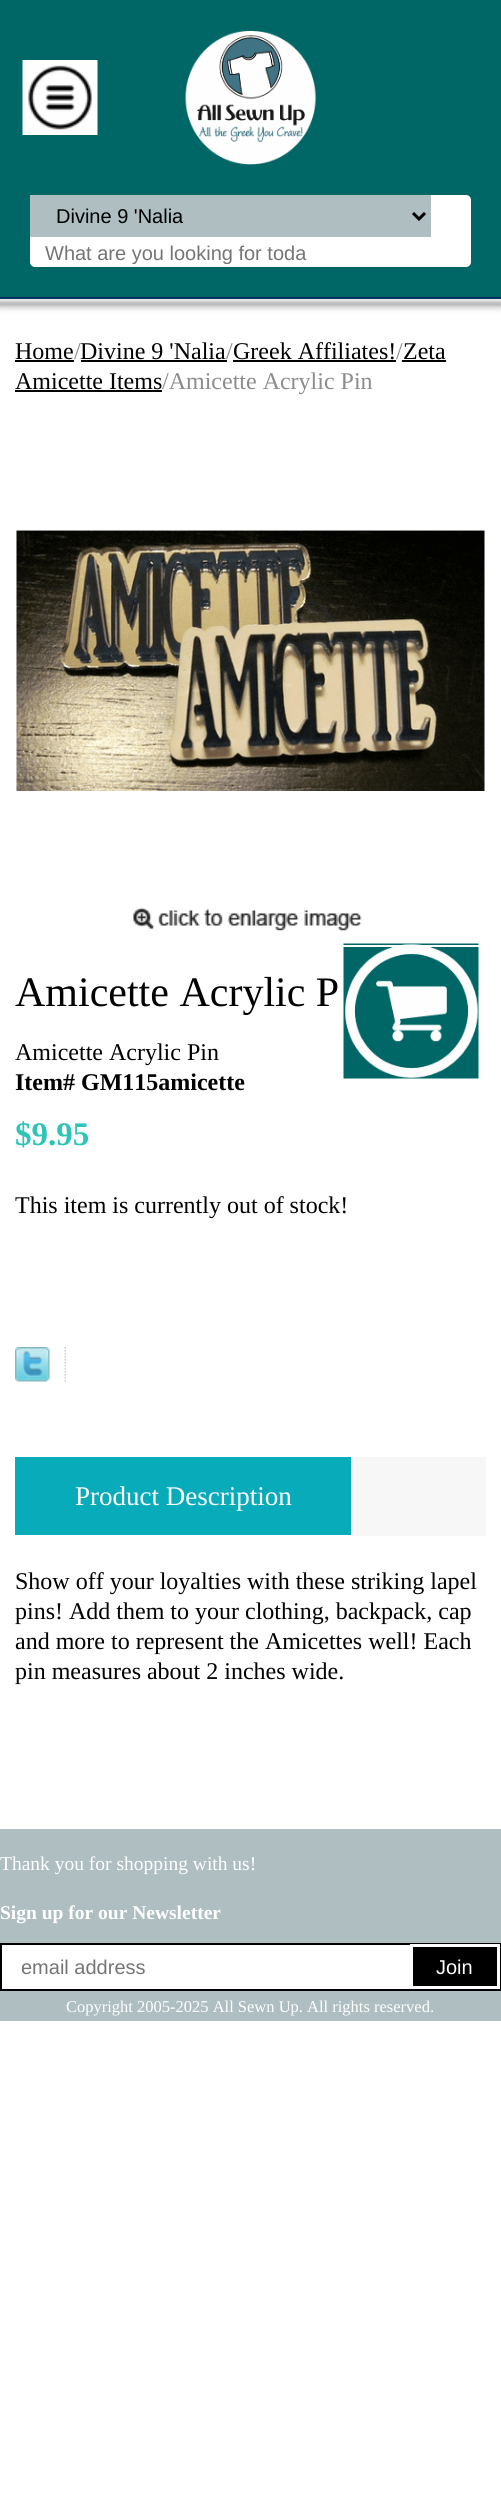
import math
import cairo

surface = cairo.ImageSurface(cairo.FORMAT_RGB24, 501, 2495)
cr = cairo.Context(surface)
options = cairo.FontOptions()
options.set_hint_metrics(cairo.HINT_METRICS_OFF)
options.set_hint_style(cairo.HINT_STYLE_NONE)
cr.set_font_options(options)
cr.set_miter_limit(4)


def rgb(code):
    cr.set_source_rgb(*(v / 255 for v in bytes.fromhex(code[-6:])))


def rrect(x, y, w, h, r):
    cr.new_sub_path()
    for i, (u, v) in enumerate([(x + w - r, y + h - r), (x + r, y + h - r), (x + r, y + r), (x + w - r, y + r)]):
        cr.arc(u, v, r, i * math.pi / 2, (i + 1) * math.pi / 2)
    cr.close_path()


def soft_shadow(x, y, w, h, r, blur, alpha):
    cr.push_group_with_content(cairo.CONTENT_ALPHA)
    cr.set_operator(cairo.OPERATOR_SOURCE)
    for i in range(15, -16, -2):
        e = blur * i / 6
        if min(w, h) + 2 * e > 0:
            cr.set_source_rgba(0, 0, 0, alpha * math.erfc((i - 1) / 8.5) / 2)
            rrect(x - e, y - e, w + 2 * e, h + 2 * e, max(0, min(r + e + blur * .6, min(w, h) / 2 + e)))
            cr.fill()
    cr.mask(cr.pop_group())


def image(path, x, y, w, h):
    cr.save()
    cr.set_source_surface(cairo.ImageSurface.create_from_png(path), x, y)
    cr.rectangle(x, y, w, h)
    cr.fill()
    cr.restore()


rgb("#ffffff")
cr.paint()
rgb("#006666")
cr.rectangle(0, 0, 501, 297)
cr.fill()
image("img/1.png", 22, 60, 76, 75)
image("img/2.png", 185, 30, 131, 135)
rgb("#ffffff")
rrect(30, 195, 441, 72, 5)
cr.fill()
rgb("#aebec1")
cr.rectangle(30, 195, 401, 42)
cr.fill()
cr.new_path()
cr.move_to(413, 213)
cr.line_to(419, 219)
cr.line_to(425, 213)
rgb("#000000")
cr.set_line_width(3)
cr.stroke()
image("img/3.png", 343, 943, 136, 136)
rgb("#000000")
soft_shadow(0, 303, 501, 2, 0, 4, 0.48)
for x, y, w, h, color in [
    (0, 297, 501, 2, "#003366"),
    (15, 360, 59, 2, "#000000"),
    (81, 360, 146, 2, "#000000"),
    (233, 360, 163, 2, "#000000"),
    (402, 360, 44, 2, "#000000"),
    (15, 390, 147, 2, "#000000"),
]:
    rgb(color)
    cr.rectangle(x, y, w, h)
    cr.fill()
cr.rectangle(16, 427, 469, 519)
rgb("#ffffff")
cr.set_line_width(2)
cr.stroke()
image("img/4.png", 16, 530, 469, 261)
image("img/5.png", 133, 907, 229, 24)
image("img/6.png", 15, 1347, 35, 35)
image("img/7.png", 64, 1347, 2, 35)
for x, y, w, h, color in [
    (351, 1457, 135, 79, "#f7f7f7"),
    (15, 1457, 336, 78, "#08abba"),
    (0, 1829, 501, 192, "#aebec1"),
    (2, 1945, 408, 44, "#ffffff"),
]:
    rgb(color)
    cr.rectangle(x, y, w, h)
    cr.fill()
cr.rectangle(1, 1944, 499, 46)
rgb("#000000")
cr.stroke()
cr.rectangle(411.5, 1945.5, 87, 42)
cr.fill_preserve()
rgb("#ffffff")
cr.set_line_width(3)
cr.stroke()
cr.select_font_face("Liberation Sans")
cr.set_font_size(20)
rgb("#000000")
cr.move_to(56, 223)
cr.show_text("Divine 9 'Nalia")
cr.save()
cr.rectangle(45, 242, 264, 22)
cr.clip()
rgb("#757575")
cr.move_to(45, 260)
cr.show_text("What are you looking for toda")
cr.restore()
cr.select_font_face("Liberation Serif")
cr.set_font_size(24)
cr.move_to(15, 359)
cr.show_text("Home")
rgb("#8c8c8c")
cr.move_to(74, 359)
cr.show_text("/")
rgb("#000000")
cr.move_to(80, 359)
cr.show_text("Divine 9 'Nalia")
rgb("#8c8c8c")
cr.move_to(226, 359)
cr.show_text("/")
rgb("#000000")
cr.move_to(233, 359)
cr.show_text("Greek Affiliates!")
rgb("#8c8c8c")
cr.move_to(396, 359)
cr.show_text("/")
rgb("#000000")
cr.move_to(403, 359)
cr.show_text("Zeta")
cr.move_to(15, 389)
cr.show_text("Amicette Items")
rgb("#8c8c8c")
cr.move_to(162, 389)
cr.show_text("/Amicette Acrylic Pin")
cr.set_font_size(42)
rgb("#000000")
cr.move_to(15, 1006)
cr.show_text("Amicette Acrylic P")
cr.set_font_size(24)
cr.move_to(15, 1060)
cr.show_text("Amicette Acrylic Pin")
cr.select_font_face("Liberation Serif", cairo.FONT_SLANT_NORMAL, cairo.FONT_WEIGHT_BOLD)
cr.move_to(15, 1090)
cr.show_text("Item# GM115amicette")
cr.set_font_size(33)
rgb("#2ec4b6")
cr.move_to(15, 1145)
cr.show_text("$9.95")
cr.select_font_face("Liberation Serif")
cr.set_font_size(24)
rgb("#000000")
cr.move_to(15, 1213)
cr.show_text("This item is currently out of stock!")
cr.set_font_size(27)
rgb("#ffffff")
cr.move_to(75, 1505)
cr.show_text("Product Description")
cr.set_font_size(24)
rgb("#000000")
for x, y, s in [
    (15, 1589, "Show off your loyalties with these striking lapel"),
    (15, 1619, "pins! Add them to your clothing, backpack, cap"),
    (15, 1649, "and more to represent the Amicettes well! Each"),
    (15, 1679, "pin measures about 2 inches wide."),
]:
    cr.move_to(x, y)
    cr.show_text(s)
cr.set_font_size(19.5)
rgb("#ffffff")
cr.move_to(0, 1870)
cr.show_text("Thank you for shopping with us!")
cr.select_font_face("Liberation Serif", cairo.FONT_SLANT_NORMAL, cairo.FONT_WEIGHT_BOLD)
cr.move_to(0, 1919)
cr.show_text("Sign up for our Newsletter")
cr.select_font_face("Liberation Sans")
cr.set_font_size(20)
rgb("#757575")
cr.move_to(21, 1974)
cr.show_text("email address")
rgb("#ffffff")
cr.move_to(436, 1974)
cr.show_text("Join")
cr.select_font_face("Liberation Serif")
cr.set_font_size(16.5)
cr.move_to(66, 2012)
cr.show_text("Copyright 2005-2025 All Sewn Up. All rights reserved.")
surface.write_to_png("page.png")
